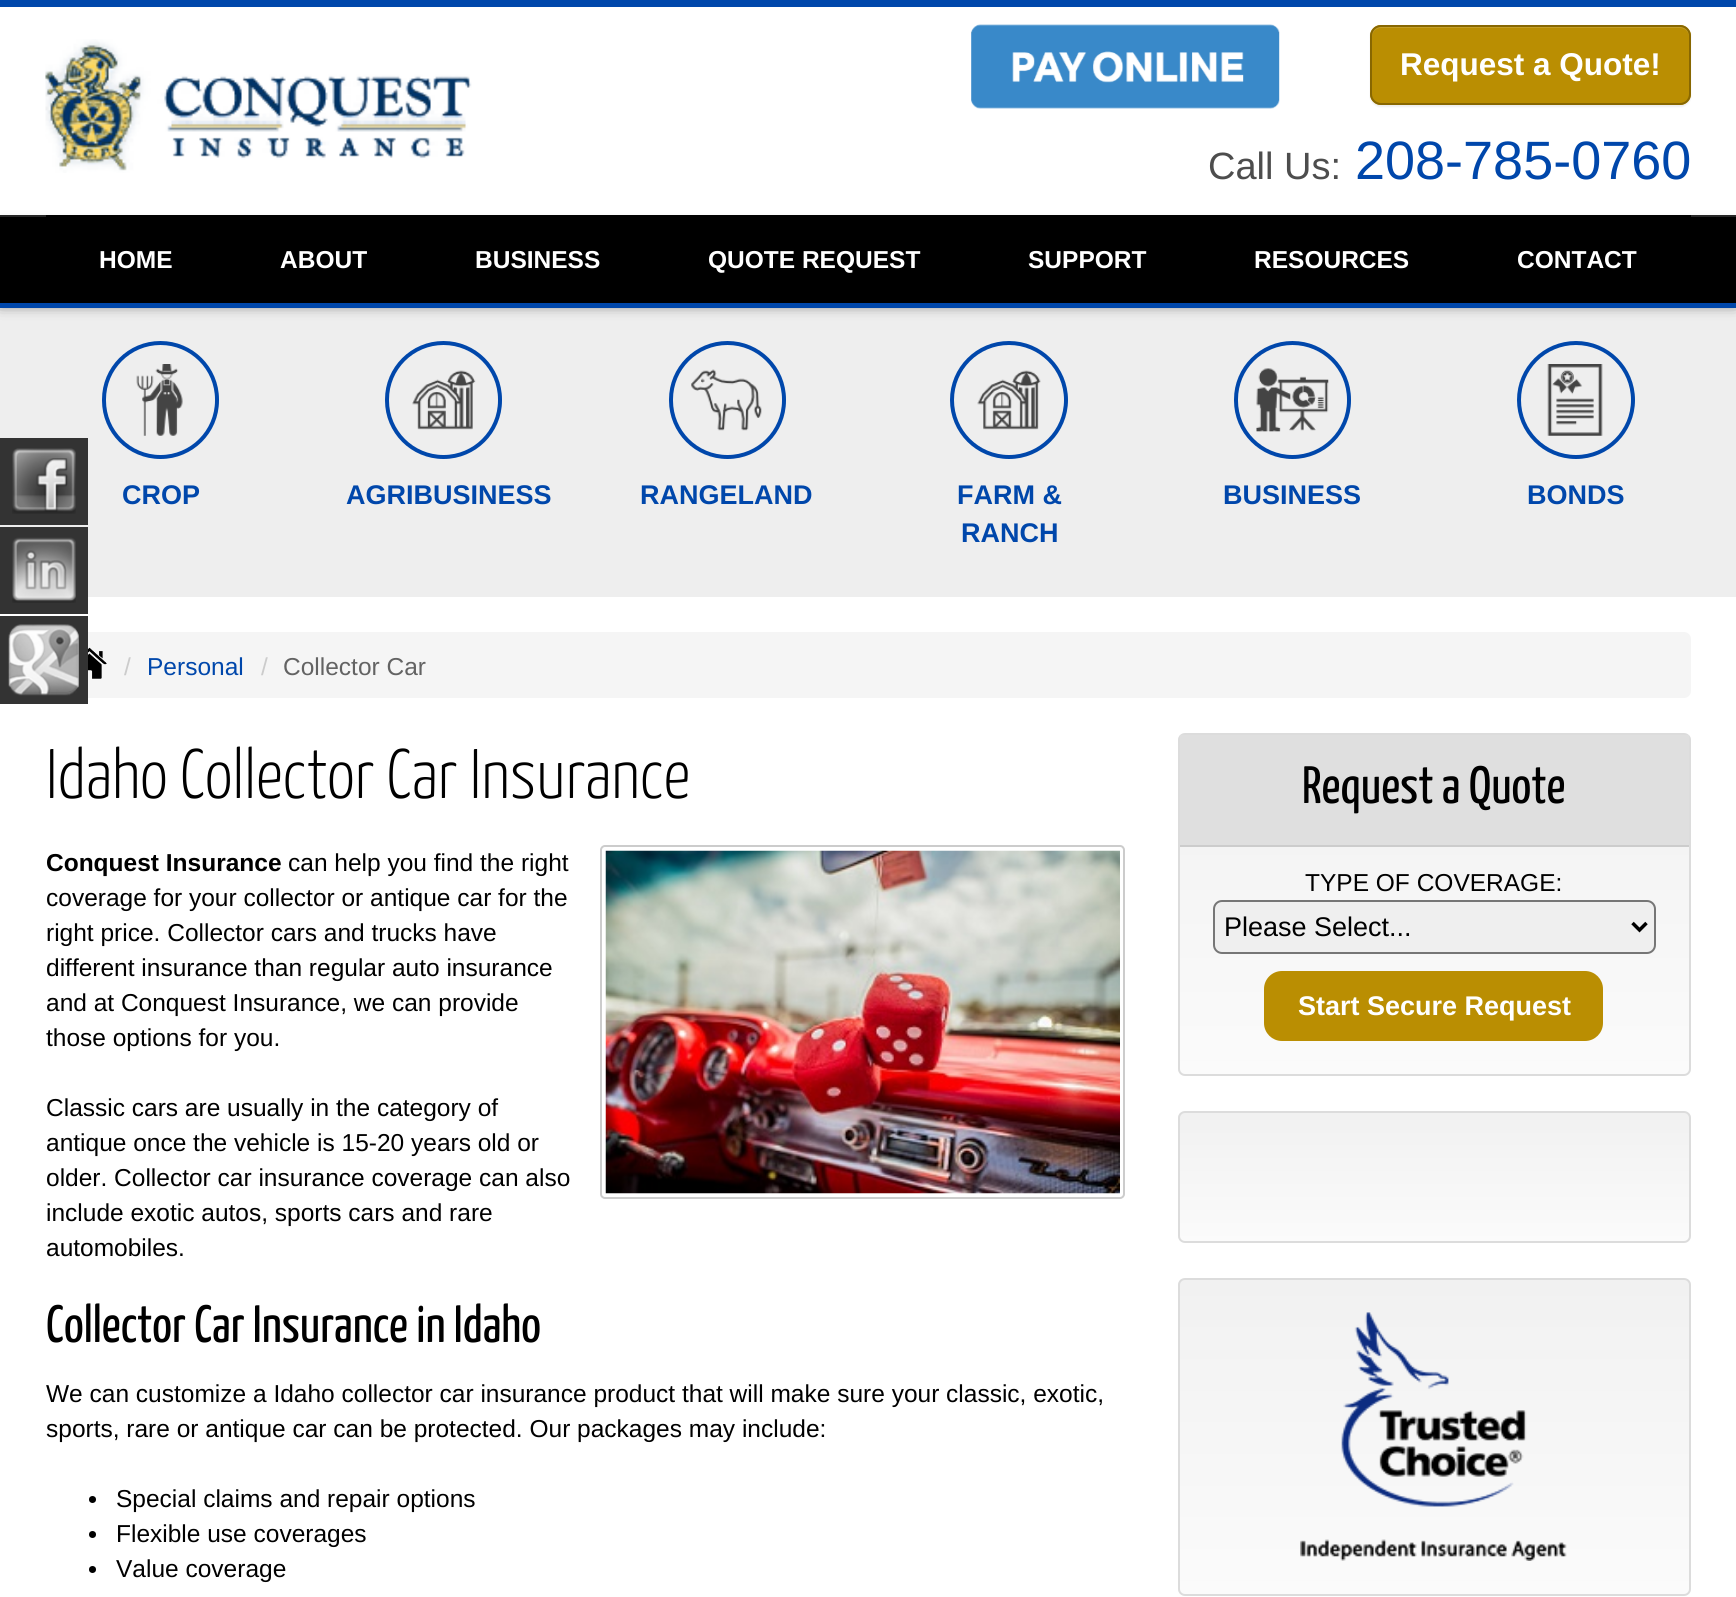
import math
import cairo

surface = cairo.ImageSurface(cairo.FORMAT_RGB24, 1736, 1597)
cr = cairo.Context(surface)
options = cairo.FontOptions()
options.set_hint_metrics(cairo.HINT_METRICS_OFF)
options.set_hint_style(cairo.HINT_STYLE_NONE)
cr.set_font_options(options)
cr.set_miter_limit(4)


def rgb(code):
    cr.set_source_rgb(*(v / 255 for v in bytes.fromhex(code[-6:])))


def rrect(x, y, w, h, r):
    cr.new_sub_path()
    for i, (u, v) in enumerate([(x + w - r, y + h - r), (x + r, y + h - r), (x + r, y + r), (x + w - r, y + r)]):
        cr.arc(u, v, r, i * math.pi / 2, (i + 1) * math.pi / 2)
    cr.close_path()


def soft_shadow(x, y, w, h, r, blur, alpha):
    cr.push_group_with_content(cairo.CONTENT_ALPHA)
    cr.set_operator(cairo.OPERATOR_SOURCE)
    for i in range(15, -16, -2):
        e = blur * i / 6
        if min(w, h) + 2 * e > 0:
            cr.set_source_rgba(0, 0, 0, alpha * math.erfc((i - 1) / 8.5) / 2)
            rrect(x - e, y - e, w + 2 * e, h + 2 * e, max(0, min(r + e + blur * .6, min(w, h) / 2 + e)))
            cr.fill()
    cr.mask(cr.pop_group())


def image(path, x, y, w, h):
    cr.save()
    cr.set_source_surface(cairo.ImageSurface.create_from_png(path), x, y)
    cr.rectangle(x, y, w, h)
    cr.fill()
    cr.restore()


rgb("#ffffff")
cr.paint()
rgb("#eeeeee")
cr.rectangle(0, 308, 1736, 289)
cr.fill()
rgb("#000000")
soft_shadow(0, 0, 1736, 298, 0, 9, 1)
rgb("#ffffff")
cr.rectangle(0, 7, 1736, 208)
cr.fill()
rgb("#0047ab")
cr.rectangle(0, 0, 1736, 7)
cr.fill()
image("img/1.png", 45, 39, 427, 134)
image("img/2.png", 971, 24, 309, 85)
rgb("#000000")
soft_shadow(1370, 26, 321, 81, 11, 1, 0.07)
rgb("#ba8e02")
rrect(1370, 25, 321, 80, 11)
cr.fill()
rgb("#c49f28")
cr.new_path()
cr.move_to(1381, 28)
cr.line_to(1680, 28)
cr.curve_to(1685, 28, 1689, 32, 1689, 37)
cr.line_to(1689, 35)
cr.curve_to(1689, 30, 1685, 26, 1680, 26)
cr.line_to(1381, 26)
cr.curve_to(1376, 26, 1372, 30, 1372, 35)
cr.line_to(1372, 37)
cr.curve_to(1372, 32, 1376, 28, 1381, 28)
cr.close_path()
cr.fill()
rrect(1371, 26, 319, 78, 10)
rgb("#886701")
cr.stroke()
rgb("#000000")
soft_shadow(0, 217, 1736, 93, 0, 4.5, 0.07)
for x, y, w, h, color in [
    (0, 217, 1736, 86, "#000000"),
    (0, 215, 1736, 2, "#262626"),
    (0, 303, 1736, 5, "#0047ab"),
    (46, 215, 1645, 2, "#000000"),
    (0, 438, 88, 87, "#333333"),
]:
    rgb(color)
    cr.rectangle(x, y, w, h)
    cr.fill()
image("img/3.png", 12, 448, 64, 66)
cr.rectangle(0, 527, 88, 87)
cr.fill()
image("img/4.png", 12, 537, 64, 66)
rgb("#f5f5f5")
rrect(46, 632, 1645, 66, 7)
cr.fill()
rgb("#333333")
cr.rectangle(0, 616, 88, 88)
cr.fill()
image("img/5.png", 8, 624, 71, 72)
rrect(104, 343, 113, 114, 56.5)
rgb("#0047ab")
cr.set_line_width(4)
cr.stroke()
image("img/6.png", 136, 364, 47, 72)
rrect(387, 343, 113, 114, 56.5)
cr.stroke()
image("img/7.png", 412, 370, 64, 60)
rrect(671, 343, 113, 114, 56.5)
cr.stroke()
image("img/8.png", 691, 369, 71, 62)
cr.arc(1009, 400, 57, 0, 2 * math.pi)
cr.stroke()
image("img/9.png", 977, 370, 64, 60)
rrect(1236, 343, 113, 114, 56.5)
cr.stroke()
image("img/10.png", 1256, 368, 73, 64)
cr.arc(1576, 400, 57, 0, 2 * math.pi)
cr.stroke()
image("img/11.png", 1547, 364, 56, 72)
image("img/12.png", 88, 647, 19, 32)
rrect(601, 846, 523, 352, 4)
rgb("#cccccc")
cr.set_line_width(2)
cr.stroke()
image("img/13.png", 605, 850, 515, 344)
rgb("#000000")
cr.arc(92.5, 1499.5, 3.5, 0, 2 * math.pi)
cr.fill()
cr.arc(92.5, 1534.5, 3.5, 0, 2 * math.pi)
cr.fill()
cr.arc(92.5, 1569.5, 3.5, 0, 2 * math.pi)
cr.fill()
cr.save()
rrect(1178, 733, 513, 343, 7)
cr.clip()
gradient = cairo.LinearGradient(1434, 735, 1434, 1075)
gradient.add_color_stop_rgba(0, 0.945, 0.945, 0.945, 1)
gradient.add_color_stop_rgba(1, 0.984, 0.984, 0.984, 1)
cr.set_source(gradient)
cr.rectangle(1178, 735, 513, 340)
cr.fill()
cr.restore()
rrect(1179, 734, 511, 341, 6)
rgb("#dcdcdc")
cr.stroke()
rgb("#dfdfdf")
cr.rectangle(1180, 735, 509, 110)
cr.fill()
rgb("#cccccc")
cr.rectangle(1180, 845, 509, 2)
cr.fill()
rgb("#efefef")
rrect(1214, 901, 441, 52, 8)
cr.fill_preserve()
rgb("#767676")
cr.stroke()
cr.new_path()
cr.move_to(1632.5, 923)
cr.line_to(1639.5, 930)
cr.line_to(1646.5, 923)
rgb("#000000")
cr.set_line_width(3.5)
cr.stroke()
rgb("#ba8e02")
rrect(1266, 973, 335, 66, 16)
cr.fill_preserve()
cr.set_line_width(4)
cr.stroke()
cr.save()
rrect(1178, 1111, 513, 132, 7)
cr.clip()
gradient = cairo.LinearGradient(1434, 1113, 1434, 1241)
gradient.add_color_stop_rgba(0, 0.945, 0.945, 0.945, 1)
gradient.add_color_stop_rgba(1, 0.984, 0.984, 0.984, 1)
cr.set_source(gradient)
cr.rectangle(1178, 1113, 513, 128)
cr.fill()
cr.restore()
rrect(1179, 1112, 511, 130, 6)
rgb("#dcdcdc")
cr.set_line_width(2)
cr.stroke()
cr.save()
rrect(1178, 1278, 513, 318, 7)
cr.clip()
gradient = cairo.LinearGradient(1434, 1279, 1434, 1594)
gradient.add_color_stop_rgba(0, 0.945, 0.945, 0.945, 1)
gradient.add_color_stop_rgba(1, 0.984, 0.984, 0.984, 1)
cr.set_source(gradient)
cr.rectangle(1178, 1279, 513, 315)
cr.fill()
cr.restore()
rrect(1179, 1279, 511, 316, 6)
cr.stroke()
image("img/14.png", 1300, 1312, 267, 249)
cr.select_font_face("Liberation Sans", cairo.FONT_SLANT_NORMAL, cairo.FONT_WEIGHT_BOLD)
cr.set_font_size(31.5)
rgb("#ffffff")
cr.move_to(1400, 75)
cr.show_text("Request a Quote!")
cr.select_font_face("Liberation Sans")
cr.set_font_size(38)
rgb("#4d4d4d")
cr.move_to(1208, 179)
cr.show_text("Call Us:")
cr.set_font_size(54)
rgb("#0047ab")
cr.move_to(1355, 179)
cr.show_text("208-785-0760")
cr.select_font_face("Liberation Sans", cairo.FONT_SLANT_NORMAL, cairo.FONT_WEIGHT_BOLD)
cr.set_font_size(24.5)
rgb("#ffffff")
for x, y, s in [
    (99, 268, "HOME"),
    (280, 268, "ABOUT"),
    (475, 268, "BUSINESS"),
    (708, 268, "QUOTE REQUEST"),
    (1028, 268, "SUPPORT"),
    (1254, 268, "RESOURCES"),
    (1517, 268, "CONTACT"),
]:
    cr.move_to(x, y)
    cr.show_text(s)
cr.set_font_size(27)
rgb("#0047ab")
for x, y, s in [
    (122, 504, "CROP"),
    (346, 504, "AGRIBUSINESS"),
    (640, 504, "RANGELAND"),
    (957, 504, "FARM &"),
    (961, 542, "RANCH"),
    (1223, 504, "BUSINESS"),
    (1527, 504, "BONDS"),
]:
    cr.move_to(x, y)
    cr.show_text(s)
cr.select_font_face("Liberation Sans")
cr.set_font_size(24.5)
rgb("#cccccc")
cr.move_to(124, 675)
cr.show_text("/")
rgb("#0047ab")
cr.move_to(147, 675)
cr.show_text("Personal")
rgb("#cccccc")
cr.move_to(261, 675)
cr.show_text("/")
rgb("#636363")
cr.move_to(283, 675)
cr.show_text("Collector Car")
cr.select_font_face("Yanone Kaffeesatz Light")
cr.set_font_size(70)
rgb("#000000")
cr.move_to(46, 798)
cr.show_text("Idaho Collector Car Insurance")
cr.select_font_face("Liberation Sans", cairo.FONT_SLANT_NORMAL, cairo.FONT_WEIGHT_BOLD)
cr.set_font_size(24.5)
cr.move_to(46, 871)
cr.show_text("Conquest Insurance")
cr.select_font_face("Liberation Sans")
for x, y, s in [
    (288, 871, "can help you find the right"),
    (46, 906, "coverage for your collector or antique car for the"),
    (46, 941, "right price. Collector cars and trucks have"),
    (46, 976, "different insurance than regular auto insurance"),
    (46, 1011, "and at Conquest Insurance, we can provide"),
    (46, 1046, "those options for you."),
    (46, 1116, "Classic cars are usually in the category of"),
    (46, 1151, "antique once the vehicle is 15-20 years old or"),
    (46, 1186, "older. Collector car insurance coverage can also"),
    (46, 1221, "include exotic autos, sports cars and rare"),
    (46, 1256, "automobiles."),
]:
    cr.move_to(x, y)
    cr.show_text(s)
cr.select_font_face("Yanone Kaffeesatz")
cr.set_font_size(52.5)
cr.move_to(46, 1342)
cr.show_text("Collector Car Insurance in Idaho")
cr.select_font_face("Liberation Sans")
cr.set_font_size(24.5)
for x, y, s in [
    (46, 1402, "We can customize a Idaho collector car insurance product that will make sure your classic, exotic,"),
    (46, 1437, "sports, rare or antique car can be protected. Our packages may include:"),
    (116, 1507, "Special claims and repair options"),
    (116, 1542, "Flexible use coverages"),
    (116, 1577, "Value coverage"),
]:
    cr.move_to(x, y)
    cr.show_text(s)
cr.select_font_face("Yanone Kaffeesatz")
cr.set_font_size(52.5)
cr.move_to(1302, 803)
cr.show_text("Request a Quote")
cr.select_font_face("Liberation Sans")
cr.set_font_size(24.5)
cr.move_to(1305, 891)
cr.show_text("TYPE OF COVERAGE:")
cr.set_font_size(27)
cr.move_to(1224, 936)
cr.show_text("Please Select...")
cr.select_font_face("Liberation Sans", cairo.FONT_SLANT_NORMAL, cairo.FONT_WEIGHT_BOLD)
rgb("#ffffff")
cr.move_to(1298, 1015)
cr.show_text("Start Secure Request")
surface.write_to_png("page.png")
